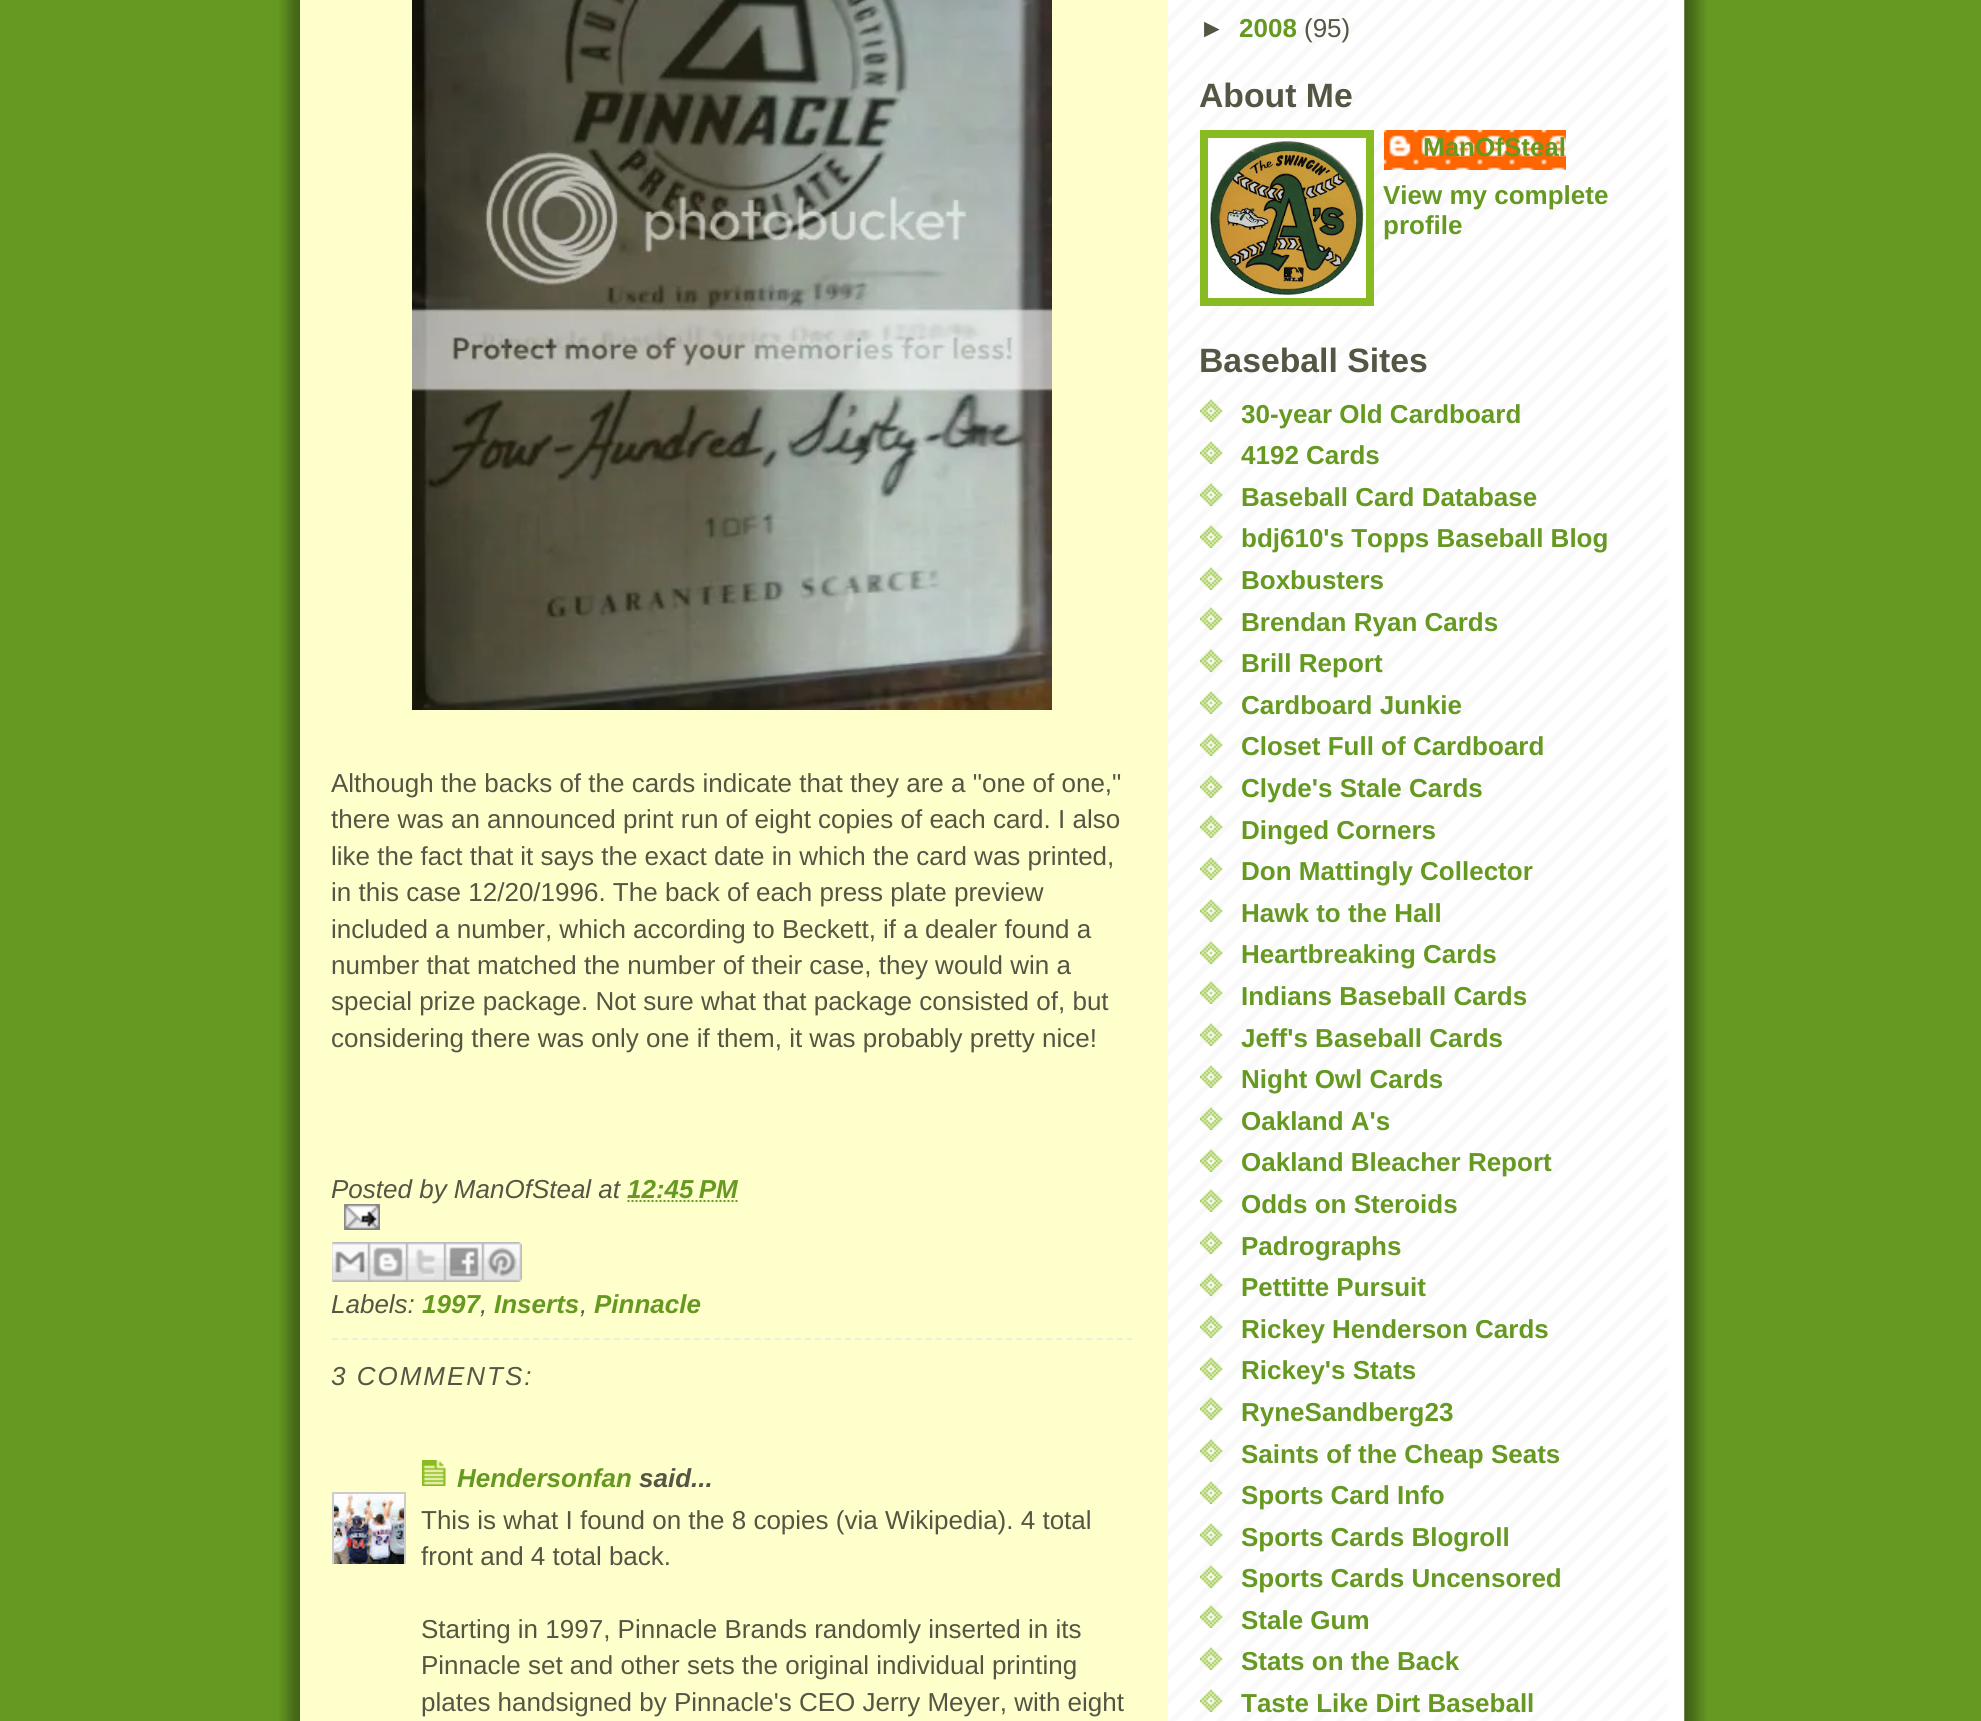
import math
import cairo

surface = cairo.ImageSurface(cairo.FORMAT_RGB24, 1981, 1721)
cr = cairo.Context(surface)
options = cairo.FontOptions()
options.set_hint_metrics(cairo.HINT_METRICS_OFF)
options.set_hint_style(cairo.HINT_STYLE_NONE)
cr.set_font_options(options)
cr.set_miter_limit(4)


def rgb(code):
    cr.set_source_rgb(*(v / 255 for v in bytes.fromhex(code[-6:])))


def tracked(x, y, s, letter, word):
    cr.move_to(x, y)
    for ch in s:
        cr.show_text(ch)
        cr.rel_move_to(letter + word * (ch == ' '), 0)


def image(path, x, y, w, h):
    cr.save()
    cr.set_source_surface(cairo.ImageSurface.create_from_png(path), x, y)
    cr.rectangle(x, y, w, h)
    cr.fill()
    cr.restore()


rgb("#669922")
cr.paint()
image("img/1.png", 279, 0, 1428, 1721)
rgb("#ffffcc")
cr.rectangle(300, 0, 868, 1721)
cr.fill()
image("img/2.png", 1168, 0, 516, 1721)
image("img/3.png", 412, 0, 640, 710)
cr.new_path()
cr.move_to(627.5, 1201)
cr.line_to(738, 1201)
rgb("#669922")
cr.set_dash([2, 2])
cr.stroke()
image("img/4.png", 344, 1204, 36, 26)
image("img/5.png", 332, 1242, 36, 40)
image("img/6.png", 368, 1242, 38, 40)
image("img/7.png", 406, 1242, 38, 40)
image("img/8.png", 444, 1242, 38, 40)
image("img/9.png", 482, 1242, 40, 40)
cr.new_path()
cr.move_to(332, 1339)
cr.line_to(1132, 1339)
rgb("#eeeedd")
cr.set_dash([6, 4.06])
cr.stroke()
image("img/10.png", 422, 1460, 24, 26)
cr.save()
cr.rectangle(332, 1492, 74, 72)
cr.clip()
cr.rectangle(333, 1493, 72, 72)
rgb("#cccccc")
cr.set_dash([])
cr.stroke()
cr.restore()
image("img/11.png", 334, 1494, 70, 70)
cr.rectangle(1204, 134, 166, 168)
rgb("#88bb22")
cr.set_line_width(8)
cr.set_dash([])
cr.stroke()
image("img/12.png", 1208, 138, 158, 160)
image("img/13.png", 1384, 130, 182, 40)
image("img/14.png", 1200, 399, 23, 23)
image("img/15.png", 1200, 441, 23, 23)
image("img/16.png", 1200, 483, 23, 23)
image("img/17.png", 1200, 525, 23, 23)
image("img/14.png", 1200, 567, 23, 23)
image("img/18.png", 1200, 607, 23, 23)
image("img/19.png", 1200, 649, 23, 23)
image("img/20.png", 1200, 691, 23, 23)
image("img/21.png", 1200, 733, 23, 23)
image("img/18.png", 1200, 775, 23, 23)
image("img/22.png", 1200, 815, 23, 23)
image("img/23.png", 1200, 857, 23, 23)
image("img/24.png", 1200, 899, 23, 23)
image("img/25.png", 1200, 941, 23, 23)
image("img/17.png", 1200, 981, 23, 23)
image("img/14.png", 1200, 1023, 23, 23)
image("img/15.png", 1200, 1065, 23, 23)
image("img/16.png", 1200, 1107, 23, 23)
image("img/17.png", 1200, 1149, 23, 23)
image("img/21.png", 1200, 1189, 23, 23)
image("img/18.png", 1200, 1231, 23, 23)
image("img/19.png", 1200, 1273, 23, 23)
image("img/20.png", 1200, 1315, 23, 23)
image("img/21.png", 1200, 1357, 23, 23)
image("img/25.png", 1200, 1397, 23, 23)
image("img/22.png", 1200, 1439, 23, 23)
image("img/23.png", 1200, 1481, 23, 23)
image("img/24.png", 1200, 1523, 23, 23)
image("img/25.png", 1200, 1565, 23, 23)
image("img/17.png", 1200, 1605, 23, 23)
image("img/14.png", 1200, 1647, 23, 23)
image("img/15.png", 1200, 1689, 23, 23)
cr.select_font_face("Liberation Sans")
cr.set_font_size(26)
rgb("#555544")
for x, y, s in [
    (331, 792, "Although the backs of the cards indicate that they are a \"one of one,\""),
    (331, 828, "there was an announced print run of eight copies of each card. I also"),
    (331, 865, "like the fact that it says the exact date in which the card was printed,"),
    (331, 901, "in this case 12/20/1996. The back of each press plate preview"),
    (331, 938, "included a number, which according to Beckett, if a dealer found a"),
    (331, 974, "number that matched the number of their case, they would win a"),
    (331, 1010, "special prize package. Not sure what that package consisted of, but"),
    (331, 1047, "considering there was only one if them, it was probably pretty nice!"),
]:
    cr.move_to(x, y)
    cr.show_text(s)
cr.select_font_face("Liberation Sans", cairo.FONT_SLANT_ITALIC)
cr.move_to(331, 1198)
cr.show_text("Posted by ManOfSteal at")
cr.select_font_face("Liberation Sans", cairo.FONT_SLANT_ITALIC, cairo.FONT_WEIGHT_BOLD)
rgb("#669922")
cr.move_to(627, 1198)
cr.show_text("12:45 PM")
cr.select_font_face("Liberation Sans", cairo.FONT_SLANT_ITALIC)
rgb("#555544")
cr.move_to(331, 1313)
cr.show_text("Labels:")
cr.select_font_face("Liberation Sans", cairo.FONT_SLANT_ITALIC, cairo.FONT_WEIGHT_BOLD)
rgb("#669922")
cr.move_to(422, 1313)
cr.show_text("1997")
cr.select_font_face("Liberation Sans", cairo.FONT_SLANT_ITALIC)
rgb("#555544")
cr.move_to(480, 1313)
cr.show_text(",")
cr.select_font_face("Liberation Sans", cairo.FONT_SLANT_ITALIC, cairo.FONT_WEIGHT_BOLD)
rgb("#669922")
cr.move_to(494, 1313)
cr.show_text("Inserts")
cr.select_font_face("Liberation Sans", cairo.FONT_SLANT_ITALIC)
rgb("#555544")
cr.move_to(580, 1313)
cr.show_text(",")
cr.select_font_face("Liberation Sans", cairo.FONT_SLANT_ITALIC, cairo.FONT_WEIGHT_BOLD)
rgb("#669922")
cr.move_to(594, 1313)
cr.show_text("Pinnacle")
cr.select_font_face("Liberation Sans", cairo.FONT_SLANT_ITALIC)
rgb("#555544")
tracked(331, 1385, "3 COMMENTS:", 2, 0)
cr.select_font_face("Liberation Sans", cairo.FONT_SLANT_ITALIC, cairo.FONT_WEIGHT_BOLD)
rgb("#669922")
cr.move_to(457, 1487)
cr.show_text("Hendersonfan")
rgb("#555544")
cr.move_to(639, 1487)
cr.show_text("said...")
cr.select_font_face("Liberation Sans")
for x, y, s in [
    (421, 1529, "This is what I found on the 8 copies (via Wikipedia). 4 total"),
    (421, 1565, "front and 4 total back."),
    (421, 1638, "Starting in 1997, Pinnacle Brands randomly inserted in its"),
    (421, 1674, "Pinnacle set and other sets the original individual printing"),
    (421, 1711, "plates handsigned by Pinnacle's CEO Jerry Meyer, with eight"),
]:
    cr.move_to(x, y)
    cr.show_text(s)
cr.select_font_face("Liberation Sans", cairo.FONT_SLANT_NORMAL, cairo.FONT_WEIGHT_BOLD)
cr.move_to(1199, 37)
cr.show_text("►")
rgb("#669922")
cr.move_to(1239, 37)
cr.show_text("2008")
cr.select_font_face("Liberation Sans")
rgb("#555544")
cr.move_to(1304, 37)
cr.show_text("(95)")
cr.select_font_face("Liberation Sans", cairo.FONT_SLANT_NORMAL, cairo.FONT_WEIGHT_BOLD)
cr.set_font_size(33.75)
cr.move_to(1199, 107)
cr.show_text("About Me")
cr.set_font_size(26)
rgb("#669922")
for x, y, s in [
    (1423, 156, "ManOfSteal"),
    (1383, 204, "View my complete"),
    (1383, 234, "profile"),
]:
    cr.move_to(x, y)
    cr.show_text(s)
cr.set_font_size(33.75)
rgb("#555544")
cr.move_to(1199, 372)
cr.show_text("Baseball Sites")
cr.set_font_size(26)
rgb("#669922")
for x, y, s in [
    (1241, 423, "30-year Old Cardboard"),
    (1241, 464, "4192 Cards"),
    (1241, 506, "Baseball Card Database"),
    (1241, 547, "bdj610's Topps Baseball Blog"),
    (1241, 589, "Boxbusters"),
    (1241, 631, "Brendan Ryan Cards"),
    (1241, 672, "Brill Report"),
    (1241, 714, "Cardboard Junkie"),
    (1241, 755, "Closet Full of Cardboard"),
    (1241, 797, "Clyde's Stale Cards"),
    (1241, 839, "Dinged Corners"),
    (1241, 880, "Don Mattingly Collector"),
    (1241, 922, "Hawk to the Hall"),
    (1241, 963, "Heartbreaking Cards"),
    (1241, 1005, "Indians Baseball Cards"),
    (1241, 1047, "Jeff's Baseball Cards"),
    (1241, 1088, "Night Owl Cards"),
    (1241, 1130, "Oakland A's"),
    (1241, 1171, "Oakland Bleacher Report"),
    (1241, 1213, "Odds on Steroids"),
    (1241, 1255, "Padrographs"),
    (1241, 1296, "Pettitte Pursuit"),
    (1241, 1338, "Rickey Henderson Cards"),
    (1241, 1379, "Rickey's Stats"),
    (1241, 1421, "RyneSandberg23"),
    (1241, 1463, "Saints of the Cheap Seats"),
    (1241, 1504, "Sports Card Info"),
    (1241, 1546, "Sports Cards Blogroll"),
    (1241, 1587, "Sports Cards Uncensored"),
    (1241, 1629, "Stale Gum"),
    (1241, 1670, "Stats on the Back"),
    (1241, 1712, "Taste Like Dirt Baseball"),
]:
    cr.move_to(x, y)
    cr.show_text(s)
surface.write_to_png("page.png")
